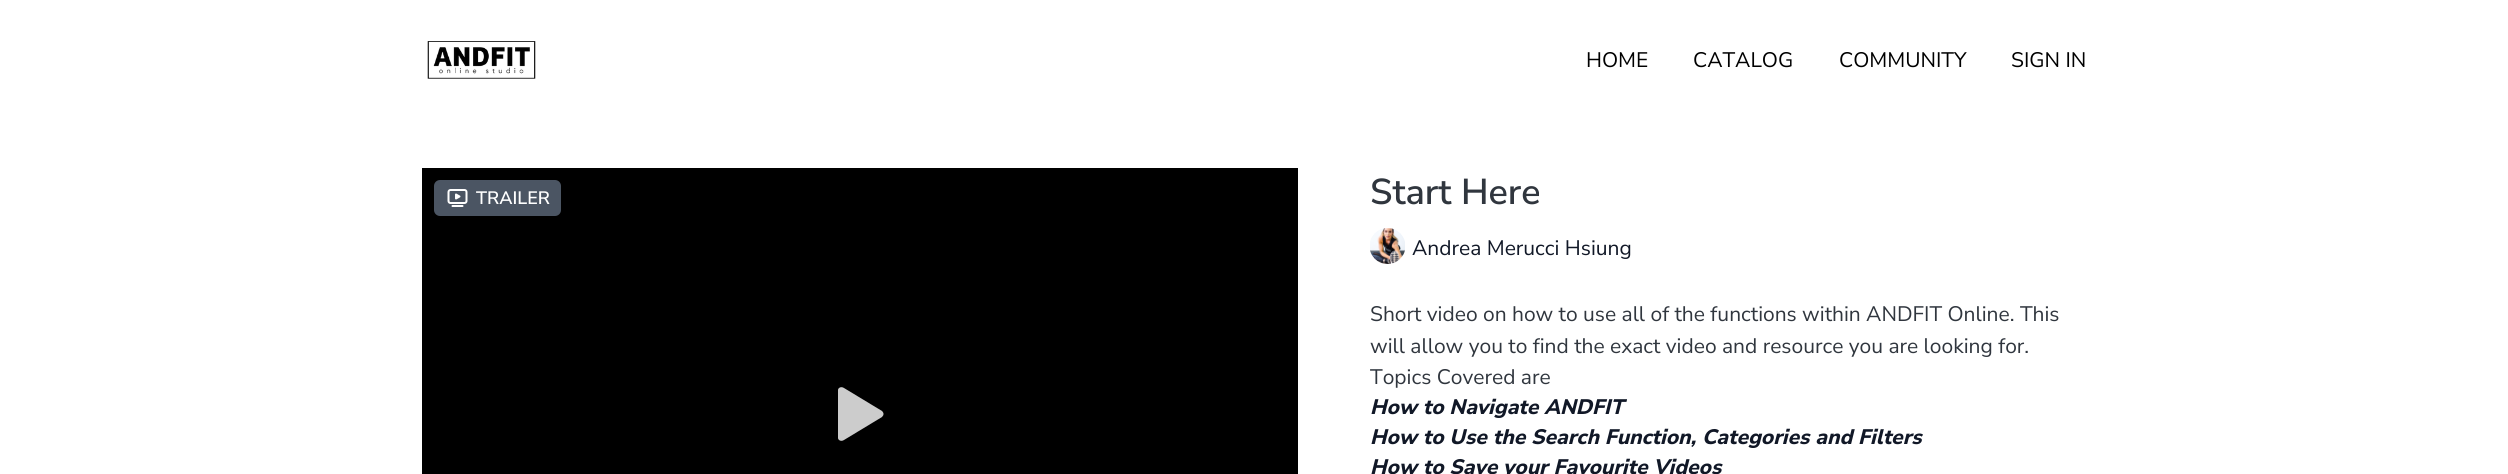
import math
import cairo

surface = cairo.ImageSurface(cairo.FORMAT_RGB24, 2508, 474)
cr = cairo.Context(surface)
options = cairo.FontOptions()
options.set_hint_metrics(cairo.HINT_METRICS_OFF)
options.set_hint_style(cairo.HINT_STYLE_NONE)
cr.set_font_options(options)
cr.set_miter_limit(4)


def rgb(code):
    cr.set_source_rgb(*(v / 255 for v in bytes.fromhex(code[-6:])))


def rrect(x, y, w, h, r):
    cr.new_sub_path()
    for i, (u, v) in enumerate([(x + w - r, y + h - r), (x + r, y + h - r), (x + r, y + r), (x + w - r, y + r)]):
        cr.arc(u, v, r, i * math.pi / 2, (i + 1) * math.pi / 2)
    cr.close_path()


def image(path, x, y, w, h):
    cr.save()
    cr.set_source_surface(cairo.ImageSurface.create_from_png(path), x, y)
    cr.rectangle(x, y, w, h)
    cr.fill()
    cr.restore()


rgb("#ffffff")
cr.paint()
image("img/1.png", 427, 41, 109, 38)
rgb("#000000")
cr.rectangle(422, 168, 876, 306)
cr.fill()
rgb("#cccccc")
cr.new_path()
cr.move_to(844, 388)
cr.curve_to(841, 386, 838, 388, 838, 390)
cr.line_to(838, 438)
cr.curve_to(838, 440, 841, 442, 844, 440)
cr.line_to(882, 417)
cr.curve_to(884, 415, 884, 413, 882, 411)
cr.close_path()
cr.fill()
rgb("#4b5563")
rrect(434, 180, 127, 36, 6)
cr.fill()
image("img/2.png", 447, 189, 21, 18)
image("img/3.png", 1370, 228, 35, 36)
cr.select_font_face("Nunito Sans")
cr.set_font_size(21)
rgb("#000000")
for x, y, s in [
    (1586, 67, "HOME"),
    (1693, 67, "CATALOG"),
    (1839, 67, "COMMUNITY"),
    (2011, 67, "SIGN IN"),
]:
    cr.move_to(x, y)
    cr.show_text(s)
cr.select_font_face("Nunito Sans SemiBold")
cr.set_font_size(18)
rgb("#ffffff")
cr.move_to(476, 204)
cr.show_text("TRAILER")
cr.set_font_size(36)
rgb("#30363e")
cr.move_to(1370, 204)
cr.show_text("Start Here")
cr.select_font_face("Nunito Sans")
cr.set_font_size(21)
rgb("#111827")
cr.move_to(1412, 255)
cr.show_text("Andrea Merucci Hsiung")
rgb("#30363e")
for x, y, s in [
    (1370, 321, "Short video on how to use all of the functions within ANDFIT Online. This"),
    (1370, 353, "will allow you to find the exact video and resource you are looking for."),
    (1370, 384, "Topics Covered are"),
]:
    cr.move_to(x, y)
    cr.show_text(s)
cr.select_font_face("Nunito Sans ExtraBold", cairo.FONT_SLANT_ITALIC)
rgb("#111827")
for x, y, s in [
    (1370, 414, "How to Navigate ANDFIT"),
    (1370, 444, "How to Use the Search Function, Categories and Filters"),
    (1370, 474, "How to Save your Favourite Videos"),
]:
    cr.move_to(x, y)
    cr.show_text(s)
surface.write_to_png("page.png")
